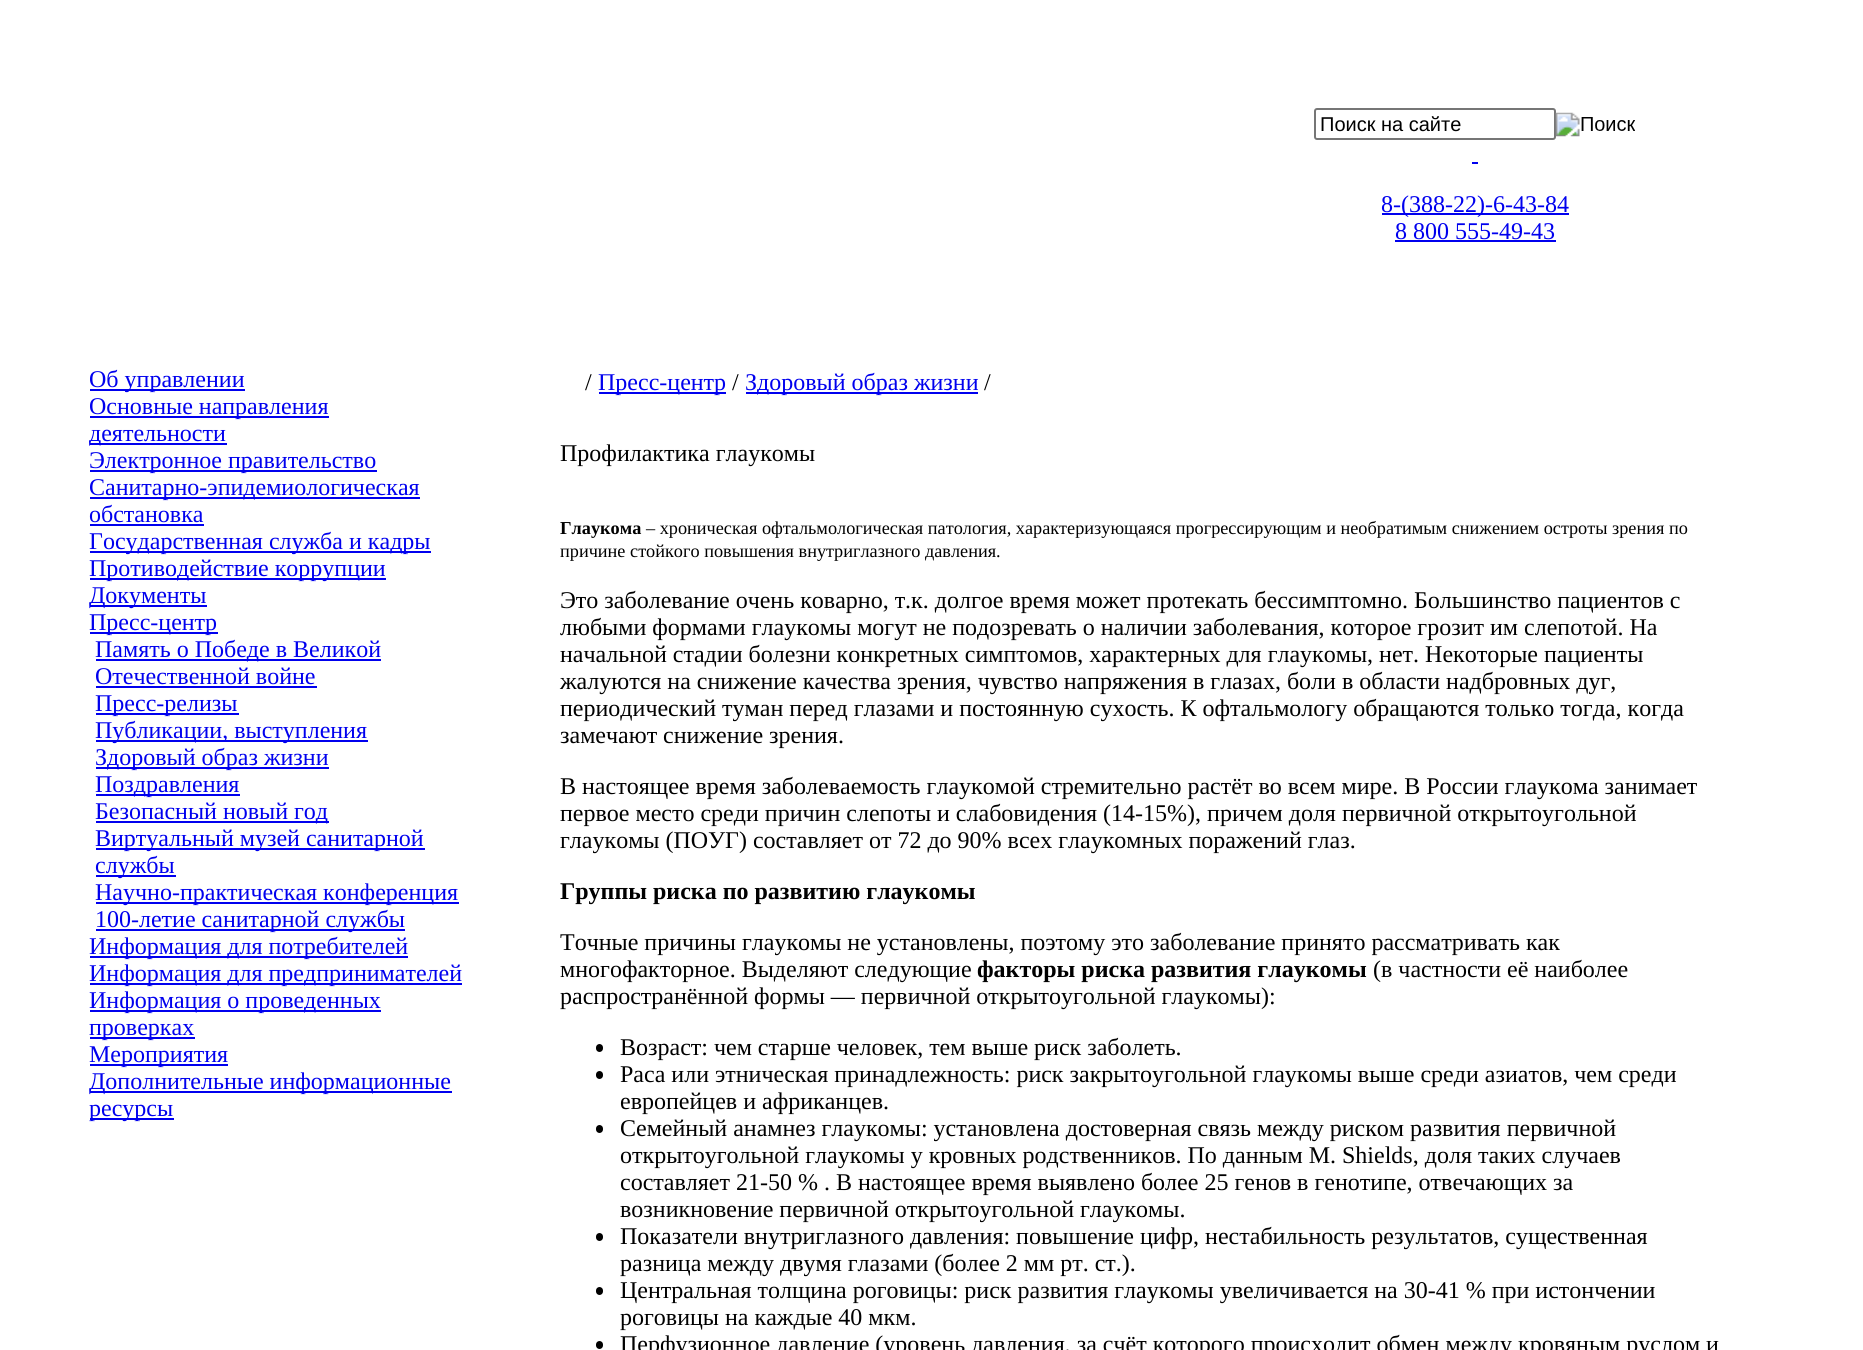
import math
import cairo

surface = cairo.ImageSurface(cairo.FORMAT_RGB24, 1863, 1350)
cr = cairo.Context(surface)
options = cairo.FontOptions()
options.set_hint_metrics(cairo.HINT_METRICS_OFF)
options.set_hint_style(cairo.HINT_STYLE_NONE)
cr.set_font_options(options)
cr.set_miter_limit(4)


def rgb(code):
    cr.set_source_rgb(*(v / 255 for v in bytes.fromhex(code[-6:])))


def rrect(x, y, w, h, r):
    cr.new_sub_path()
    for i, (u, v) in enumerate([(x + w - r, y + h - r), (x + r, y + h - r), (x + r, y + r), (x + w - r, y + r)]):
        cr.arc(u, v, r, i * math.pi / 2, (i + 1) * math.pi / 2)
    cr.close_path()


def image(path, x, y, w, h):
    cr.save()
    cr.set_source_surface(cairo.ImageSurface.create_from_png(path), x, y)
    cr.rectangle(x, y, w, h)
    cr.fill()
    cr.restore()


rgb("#ffffff")
cr.paint()
rrect(1315, 109, 240, 30, 2)
rgb("#767676")
cr.stroke()
image("img/1.png", 1555, 112, 80, 25)
for x, y, w, h, color in [
    (1472, 162, 6, 2, "#0000ee"),
    (1382, 213, 187, 2, "#0000ee"),
    (1395, 240, 161, 2, "#0000ee"),
    (90, 389, 155, 2, "#0000ee"),
    (90, 416, 239, 2, "#0000ee"),
    (90, 443, 137, 2, "#0000ee"),
    (90, 470, 287, 2, "#0000ee"),
    (90, 497, 330, 2, "#0000ee"),
    (90, 524, 114, 2, "#0000ee"),
    (90, 551, 341, 2, "#0000ee"),
    (90, 578, 296, 2, "#0000ee"),
    (90, 605, 117, 2, "#0000ee"),
    (90, 632, 128, 2, "#0000ee"),
    (96, 659, 285, 2, "#0000ee"),
    (96, 686, 221, 2, "#0000ee"),
    (96, 713, 143, 2, "#0000ee"),
    (96, 740, 272, 2, "#0000ee"),
    (96, 767, 233, 2, "#0000ee"),
    (96, 794, 144, 2, "#0000ee"),
    (96, 821, 233, 2, "#0000ee"),
    (96, 848, 329, 2, "#0000ee"),
    (96, 875, 80, 2, "#0000ee"),
    (96, 902, 363, 2, "#0000ee"),
    (96, 929, 309, 2, "#0000ee"),
    (90, 956, 318, 2, "#0000ee"),
    (90, 983, 372, 2, "#0000ee"),
    (90, 1010, 291, 2, "#0000ee"),
    (90, 1037, 105, 2, "#0000ee"),
    (90, 1064, 138, 2, "#0000ee"),
    (90, 1091, 362, 2, "#0000ee"),
    (90, 1118, 84, 2, "#0000ee"),
    (599, 392, 127, 2, "#0000ee"),
    (746, 392, 232, 2, "#0000ee"),
]:
    rgb(color)
    cr.rectangle(x, y, w, h)
    cr.fill()
rgb("#000000")
rrect(596, 1044, 7, 8, 3.5)
cr.fill()
rrect(596, 1071, 7, 8, 3.5)
cr.fill()
rrect(596, 1125, 7, 8, 3.5)
cr.fill()
rrect(596, 1233, 7, 8, 3.5)
cr.fill()
rrect(596, 1287, 7, 8, 3.5)
cr.fill()
rrect(596, 1341, 7, 8, 3.5)
cr.fill()
cr.select_font_face("Liberation Sans")
cr.set_font_size(20)
cr.move_to(1320, 131)
cr.show_text("Поиск на сайте")
cr.select_font_face("Liberation Serif")
cr.set_font_size(24)
rgb("#0000ee")
for x, y, s in [
    (1381, 212, "8-(388-22)-6-43-84"),
    (1395, 239, "8 800 555-49-43"),
    (89, 387, "Об управлении"),
    (89, 414, "Основные направления"),
    (89, 441, "деятельности"),
    (89, 468, "Электронное правительство"),
    (89, 495, "Санитарно-эпидемиологическая"),
    (89, 522, "обстановка"),
    (89, 549, "Государственная служба и кадры"),
    (89, 576, "Противодействие коррупции"),
    (89, 603, "Документы"),
    (89, 630, "Пресс-центр"),
    (95, 657, "Память о Победе в Великой"),
    (95, 684, "Отечественной войне"),
    (95, 711, "Пресс-релизы"),
    (95, 738, "Публикации, выступления"),
    (95, 765, "Здоровый образ жизни"),
    (95, 792, "Поздравления"),
    (95, 819, "Безопасный новый год"),
    (95, 846, "Виртуальный музей санитарной"),
    (95, 873, "службы"),
    (95, 900, "Научно-практическая конференция"),
    (95, 927, "100-летие санитарной службы"),
    (89, 954, "Информация для потребителей"),
    (89, 981, "Информация для предпринимателей"),
    (89, 1008, "Информация о проведенных"),
    (89, 1035, "проверках"),
    (89, 1062, "Мероприятия"),
    (89, 1089, "Дополнительные информационные"),
    (89, 1116, "ресурсы"),
]:
    cr.move_to(x, y)
    cr.show_text(s)
rgb("#000000")
cr.move_to(585, 390)
cr.show_text("/")
rgb("#0000ee")
cr.move_to(598, 390)
cr.show_text("Пресс-центр")
rgb("#000000")
cr.move_to(732, 390)
cr.show_text("/")
rgb("#0000ee")
cr.move_to(745, 390)
cr.show_text("Здоровый образ жизни")
rgb("#000000")
cr.move_to(984, 390)
cr.show_text("/")
cr.move_to(560, 461)
cr.show_text("Профилактика глаукомы")
cr.select_font_face("Liberation Serif", cairo.FONT_SLANT_NORMAL, cairo.FONT_WEIGHT_BOLD)
cr.set_font_size(18.25)
cr.move_to(560, 534)
cr.show_text("Глаукома")
cr.select_font_face("Liberation Serif")
cr.move_to(646, 534)
cr.show_text("– хроническая офтальмологическая патология, характеризующаяся прогрессирующим и необратимым снижением остроты зрения по")
cr.move_to(560, 557)
cr.show_text("причине стойкого повышения внутриглазного давления.")
cr.set_font_size(24)
for x, y, s in [
    (560, 608, "Это заболевание очень коварно, т.к. долгое время может протекать бессимптомно. Большинство пациентов с"),
    (560, 635, "любыми формами глаукомы могут не подозревать о наличии заболевания, которое грозит им слепотой. На"),
    (560, 662, "начальной стадии болезни конкретных симптомов, характерных для глаукомы, нет. Некоторые пациенты"),
    (560, 689, "жалуются на снижение качества зрения, чувство напряжения в глазах, боли в области надбровных дуг,"),
    (560, 716, "периодический туман перед глазами и постоянную сухость. К офтальмологу обращаются только тогда, когда"),
    (560, 743, "замечают снижение зрения."),
    (560, 794, "В настоящее время заболеваемость глаукомой стремительно растёт во всем мире. В России глаукома занимает"),
    (560, 821, "первое место среди причин слепоты и слабовидения (14-15%), причем доля первичной открытоугольной"),
    (560, 848, "глаукомы (ПОУГ) составляет от 72 до 90% всех глаукомных поражений глаз."),
]:
    cr.move_to(x, y)
    cr.show_text(s)
cr.select_font_face("Liberation Serif", cairo.FONT_SLANT_NORMAL, cairo.FONT_WEIGHT_BOLD)
cr.move_to(560, 899)
cr.show_text("Группы риска по развитию глаукомы")
cr.select_font_face("Liberation Serif")
cr.move_to(560, 950)
cr.show_text("Точные причины глаукомы не установлены, поэтому это заболевание принято рассматривать как")
cr.move_to(560, 977)
cr.show_text("многофакторное. Выделяют следующие")
cr.select_font_face("Liberation Serif", cairo.FONT_SLANT_NORMAL, cairo.FONT_WEIGHT_BOLD)
cr.move_to(977, 977)
cr.show_text("факторы риска развития глаукомы")
cr.select_font_face("Liberation Serif")
for x, y, s in [
    (1373, 977, "(в частности её наиболее"),
    (560, 1004, "распространённой формы — первичной открытоугольной глаукомы):"),
    (620, 1055, "Возраст: чем старше человек, тем выше риск заболеть."),
    (620, 1082, "Раса или этническая принадлежность: риск закрытоугольной глаукомы выше среди азиатов, чем среди"),
    (620, 1109, "европейцев и африканцев."),
    (620, 1136, "Семейный анамнез глаукомы: установлена достоверная связь между риском развития первичной"),
    (620, 1163, "открытоугольной глаукомы у кровных родственников. По данным M. Shields, доля таких случаев"),
    (620, 1190, "составляет 21-50 % . В настоящее время выявлено более 25 генов в генотипе, отвечающих за"),
    (620, 1217, "возникновение первичной открытоугольной глаукомы."),
    (620, 1244, "Показатели внутриглазного давления: повышение цифр, нестабильность результатов, существенная"),
    (620, 1271, "разница между двумя глазами (более 2 мм рт. ст.)."),
    (620, 1298, "Центральная толщина роговицы: риск развития глаукомы увеличивается на 30-41 % при истончении"),
    (620, 1325, "роговицы на каждые 40 мкм."),
    (620, 1352, "Перфузионное давление (уровень давления, за счёт которого происходит обмен между кровяным руслом и"),
]:
    cr.move_to(x, y)
    cr.show_text(s)
surface.write_to_png("page.png")
